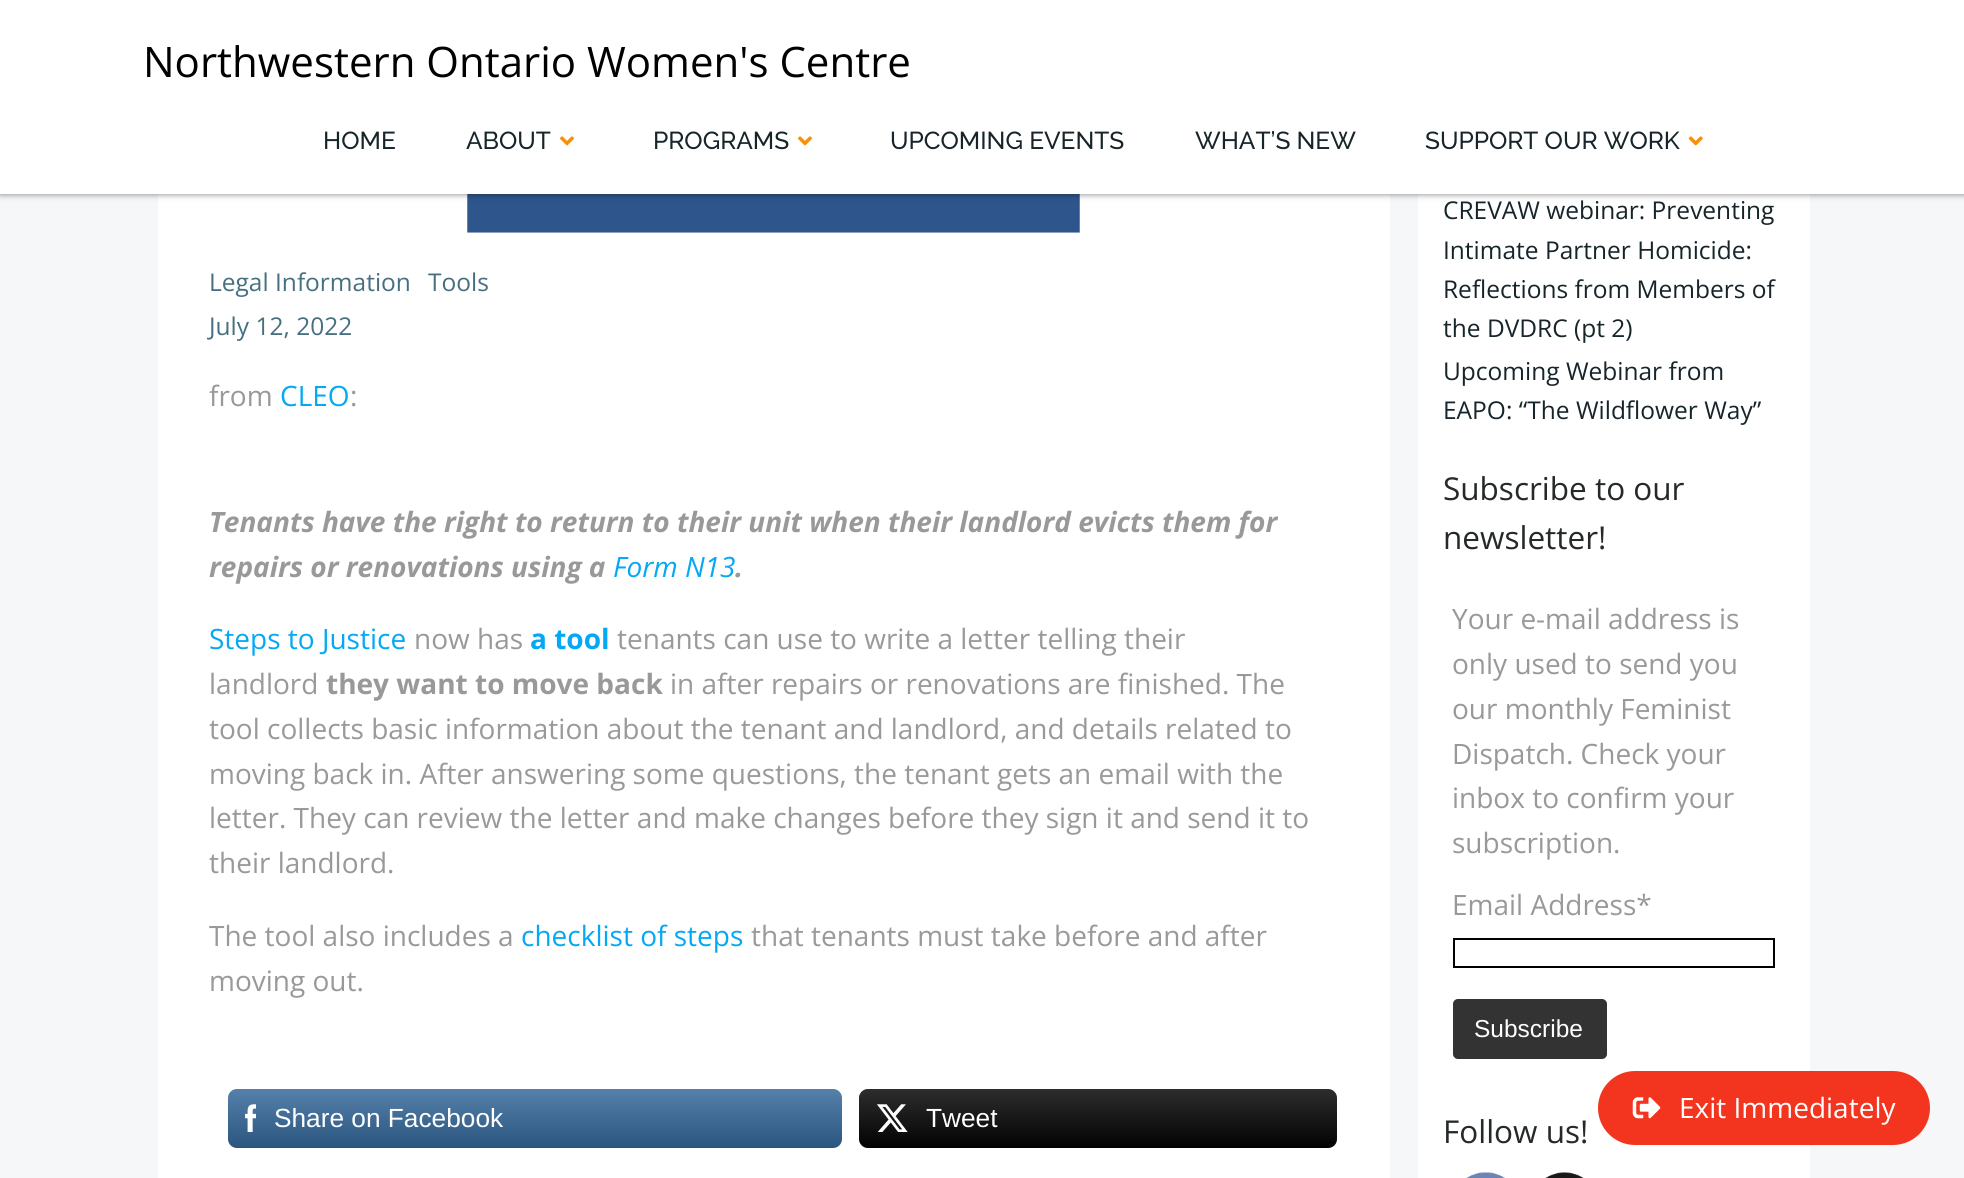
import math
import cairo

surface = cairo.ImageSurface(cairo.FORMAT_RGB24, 1964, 1178)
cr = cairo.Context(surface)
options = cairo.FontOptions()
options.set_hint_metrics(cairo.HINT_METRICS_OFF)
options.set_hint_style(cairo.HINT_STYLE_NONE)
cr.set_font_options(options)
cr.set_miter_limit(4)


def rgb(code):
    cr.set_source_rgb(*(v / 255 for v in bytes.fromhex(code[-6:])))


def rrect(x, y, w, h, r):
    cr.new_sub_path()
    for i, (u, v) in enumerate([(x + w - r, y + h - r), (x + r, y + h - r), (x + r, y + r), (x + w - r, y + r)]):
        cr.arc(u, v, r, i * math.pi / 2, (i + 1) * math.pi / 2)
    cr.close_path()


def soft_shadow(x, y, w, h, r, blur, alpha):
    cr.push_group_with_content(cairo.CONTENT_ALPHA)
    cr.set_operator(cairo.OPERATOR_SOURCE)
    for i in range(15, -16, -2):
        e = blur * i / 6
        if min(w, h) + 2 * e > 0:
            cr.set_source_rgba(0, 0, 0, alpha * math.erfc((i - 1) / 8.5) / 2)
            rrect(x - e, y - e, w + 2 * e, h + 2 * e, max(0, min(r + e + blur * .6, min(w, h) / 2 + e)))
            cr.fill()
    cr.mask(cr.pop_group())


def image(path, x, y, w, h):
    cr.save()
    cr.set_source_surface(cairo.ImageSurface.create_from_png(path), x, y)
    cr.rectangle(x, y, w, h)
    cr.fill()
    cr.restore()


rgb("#f5f7f8")
cr.paint()
rgb("#ffffff")
cr.rectangle(158, 194, 1232, 984)
cr.fill()
image("img/3.png", 467, 194, 613, 39)
cr.rectangle(1418, 194, 392, 984)
cr.fill()
rgb("#000000")
soft_shadow(0, 0, 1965, 194, 0, 3.5, 0.5)
rgb("#ffffff")
cr.rectangle(0, 0, 1964, 194)
cr.fill()
image("img/1.png", 560, 136, 14, 10)
image("img/1.png", 798, 136, 14, 10)
image("img/2.png", 1688, 136, 15, 10)
rgb("#336699")
rrect(228, 1089, 614, 59, 9)
cr.fill()
gradient = cairo.LinearGradient(535, 1148, 535, 1089)
gradient.add_color_stop_rgba(0, 0, 0, 0, 0.17)
gradient.add_color_stop_rgba(1, 1, 1, 1, 0.17)
cr.set_source(gradient)
rrect(228, 1089, 614, 59, 9)
cr.fill()
image("img/4.png", 245, 1104, 11, 28)
rgb("#020202")
rrect(859, 1089, 478, 59, 9)
cr.fill()
gradient = cairo.LinearGradient(1098, 1148, 1098, 1089)
gradient.add_color_stop_rgba(0, 0, 0, 0, 0.17)
gradient.add_color_stop_rgba(1, 1, 1, 1, 0.17)
cr.set_source(gradient)
rrect(859, 1089, 478, 59, 9)
cr.fill()
image("img/5.png", 877, 1104, 31, 28)
cr.rectangle(1454, 939, 320, 28)
rgb("#000000")
cr.stroke()
rgb("#333333")
rrect(1453, 999, 154, 60, 5)
cr.fill()
image("img/6.png", 1466, 1172, 39, 6)
image("img/7.png", 1545, 1172, 39, 6)
rgb("#f3341e")
rrect(1598, 1071, 332, 74, 37)
cr.fill()
image("img/8.png", 1632, 1097, 29, 22)
cr.select_font_face("Open Sans")
cr.set_font_size(42)
rgb("#000000")
cr.move_to(143, 77)
cr.show_text("Northwestern Ontario Women's Centre")
cr.select_font_face("Raleway Medium")
cr.set_font_size(24.5)
rgb("#17252a")
for x, y, s in [
    (323, 149, "HOME"),
    (466, 149, "ABOUT"),
    (653, 149, "PROGRAMS"),
    (890, 149, "UPCOMING EVENTS"),
    (1195, 149, "WHAT’S NEW"),
    (1425, 149, "SUPPORT OUR WORK"),
]:
    cr.move_to(x, y)
    cr.show_text(s)
cr.select_font_face("Open Sans")
rgb("#46707f")
for x, y, s in [
    (209, 291, "Legal Information"),
    (428, 291, "Tools"),
    (209, 335, "July 12, 2022"),
]:
    cr.move_to(x, y)
    cr.show_text(s)
cr.set_font_size(28)
rgb("#999999")
cr.move_to(209, 406)
cr.show_text("from")
rgb("#03a9f4")
cr.move_to(280, 406)
cr.show_text("CLEO")
rgb("#999999")
cr.move_to(350, 406)
cr.show_text(":")
cr.select_font_face("Open Sans", cairo.FONT_SLANT_ITALIC, cairo.FONT_WEIGHT_BOLD)
cr.move_to(209, 532)
cr.show_text("Tenants have the right to return to their unit when their landlord evicts them for")
cr.move_to(209, 577)
cr.show_text("repairs or renovations using a")
cr.select_font_face("Open Sans", cairo.FONT_SLANT_ITALIC)
rgb("#03a9f4")
cr.move_to(613, 577)
cr.show_text("Form N13")
cr.select_font_face("Open Sans", cairo.FONT_SLANT_ITALIC, cairo.FONT_WEIGHT_BOLD)
rgb("#999999")
cr.move_to(735, 577)
cr.show_text(".")
cr.select_font_face("Open Sans")
rgb("#03a9f4")
cr.move_to(209, 649)
cr.show_text("Steps to Justice")
rgb("#999999")
cr.move_to(414, 649)
cr.show_text("now has")
cr.select_font_face("Open Sans", cairo.FONT_SLANT_NORMAL, cairo.FONT_WEIGHT_BOLD)
rgb("#03a9f4")
cr.move_to(530, 649)
cr.show_text("a tool")
cr.select_font_face("Open Sans")
rgb("#999999")
cr.move_to(617, 649)
cr.show_text("tenants can use to write a letter telling their")
cr.move_to(209, 694)
cr.show_text("landlord")
cr.select_font_face("Open Sans", cairo.FONT_SLANT_NORMAL, cairo.FONT_WEIGHT_BOLD)
cr.move_to(326, 694)
cr.show_text("they want to move back")
cr.select_font_face("Open Sans")
for x, y, s in [
    (670, 694, "in after repairs or renovations are finished. The"),
    (209, 739, "tool collects basic information about the tenant and landlord, and details related to"),
    (209, 784, "moving back in. After answering some questions, the tenant gets an email with the"),
    (209, 828, "letter. They can review the letter and make changes before they sign it and send it to"),
    (209, 873, "their landlord."),
    (209, 946, "The tool also includes a"),
]:
    cr.move_to(x, y)
    cr.show_text(s)
rgb("#03a9f4")
cr.move_to(521, 946)
cr.show_text("checklist of steps")
rgb("#999999")
cr.move_to(751, 946)
cr.show_text("that tenants must take before and after")
cr.move_to(209, 991)
cr.show_text("moving out.")
cr.select_font_face("Liberation Sans")
cr.set_font_size(26.25)
rgb("#ffffff")
cr.move_to(274, 1127)
cr.show_text("Share on Facebook")
cr.move_to(926, 1127)
cr.show_text("Tweet")
cr.select_font_face("Open Sans")
cr.set_font_size(24.5)
rgb("#17252a")
for x, y, s in [
    (1443, 219, "CREVAW webinar: Preventing"),
    (1443, 259, "Intimate Partner Homicide:"),
    (1443, 298, "Reflections from Members of"),
    (1443, 337, "the DVDRC (pt 2)"),
    (1443, 380, "Upcoming Webinar from"),
    (1443, 419, "EAPO: “The Wildflower Way”"),
]:
    cr.move_to(x, y)
    cr.show_text(s)
cr.set_font_size(31.5)
rgb("#25292a")
cr.move_to(1443, 500)
cr.show_text("Subscribe to our")
cr.move_to(1443, 549)
cr.show_text("newsletter!")
cr.set_font_size(28)
rgb("#999999")
for x, y, s in [
    (1452, 629, "Your e-mail address is"),
    (1452, 674, "only used to send you"),
    (1452, 719, "our monthly Feminist"),
    (1452, 764, "Dispatch. Check your"),
    (1452, 808, "inbox to confirm your"),
    (1452, 853, "subscription."),
    (1452, 915, "Email Address*"),
]:
    cr.move_to(x, y)
    cr.show_text(s)
cr.select_font_face("Liberation Sans")
cr.set_font_size(24.5)
rgb("#ffffff")
cr.move_to(1474, 1037)
cr.show_text("Subscribe")
cr.select_font_face("Open Sans")
cr.set_font_size(31.5)
rgb("#25292a")
cr.move_to(1443, 1143)
cr.show_text("Follow us!")
cr.set_font_size(28)
rgb("#ffffff")
cr.move_to(1679, 1118)
cr.show_text("Exit Immediately")
surface.write_to_png("page.png")
